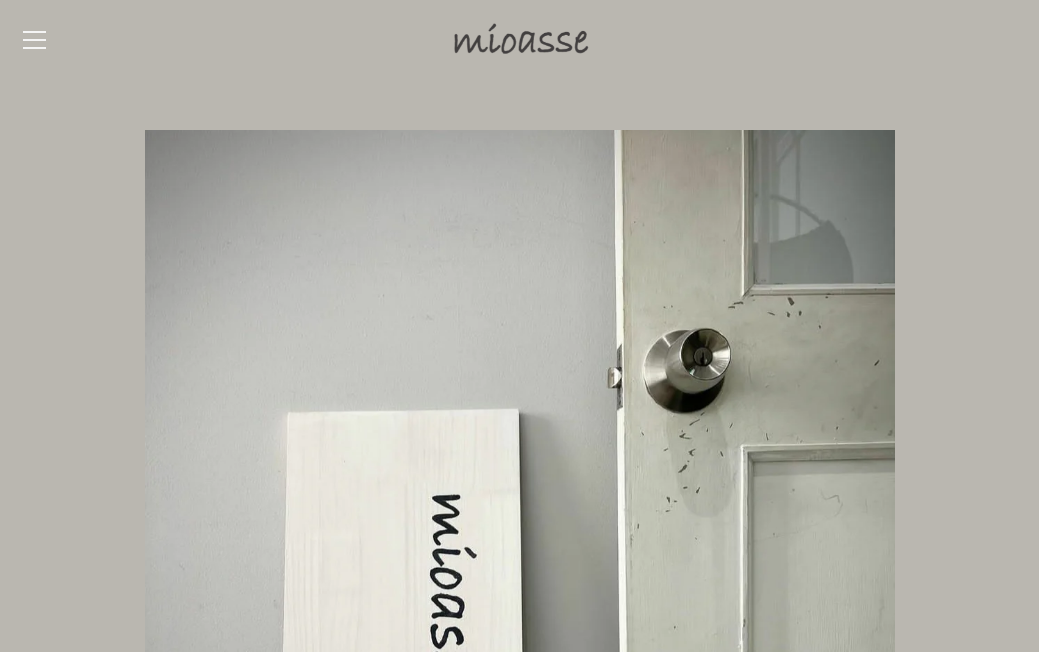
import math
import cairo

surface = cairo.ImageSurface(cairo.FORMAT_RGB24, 1039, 652)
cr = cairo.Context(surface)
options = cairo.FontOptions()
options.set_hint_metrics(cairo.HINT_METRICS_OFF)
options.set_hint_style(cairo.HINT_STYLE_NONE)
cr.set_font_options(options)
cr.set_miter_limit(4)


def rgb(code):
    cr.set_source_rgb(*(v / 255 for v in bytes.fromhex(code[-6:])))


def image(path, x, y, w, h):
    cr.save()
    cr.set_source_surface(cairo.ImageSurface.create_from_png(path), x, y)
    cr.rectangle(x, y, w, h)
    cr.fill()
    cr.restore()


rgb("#bab7b0")
cr.paint()
for x, y, w, h, color in [
    (23, 31, 23, 2, "#f4f4f4"),
    (23, 39, 23, 2, "#f4f4f4"),
    (23, 47, 23, 2, "#f4f4f4"),
]:
    rgb(color)
    cr.rectangle(x, y, w, h)
    cr.fill()
image("img/1.png", 454, 23, 135, 31)
image("img/2.png", 145, 130, 750, 522)
surface.write_to_png("page.png")
